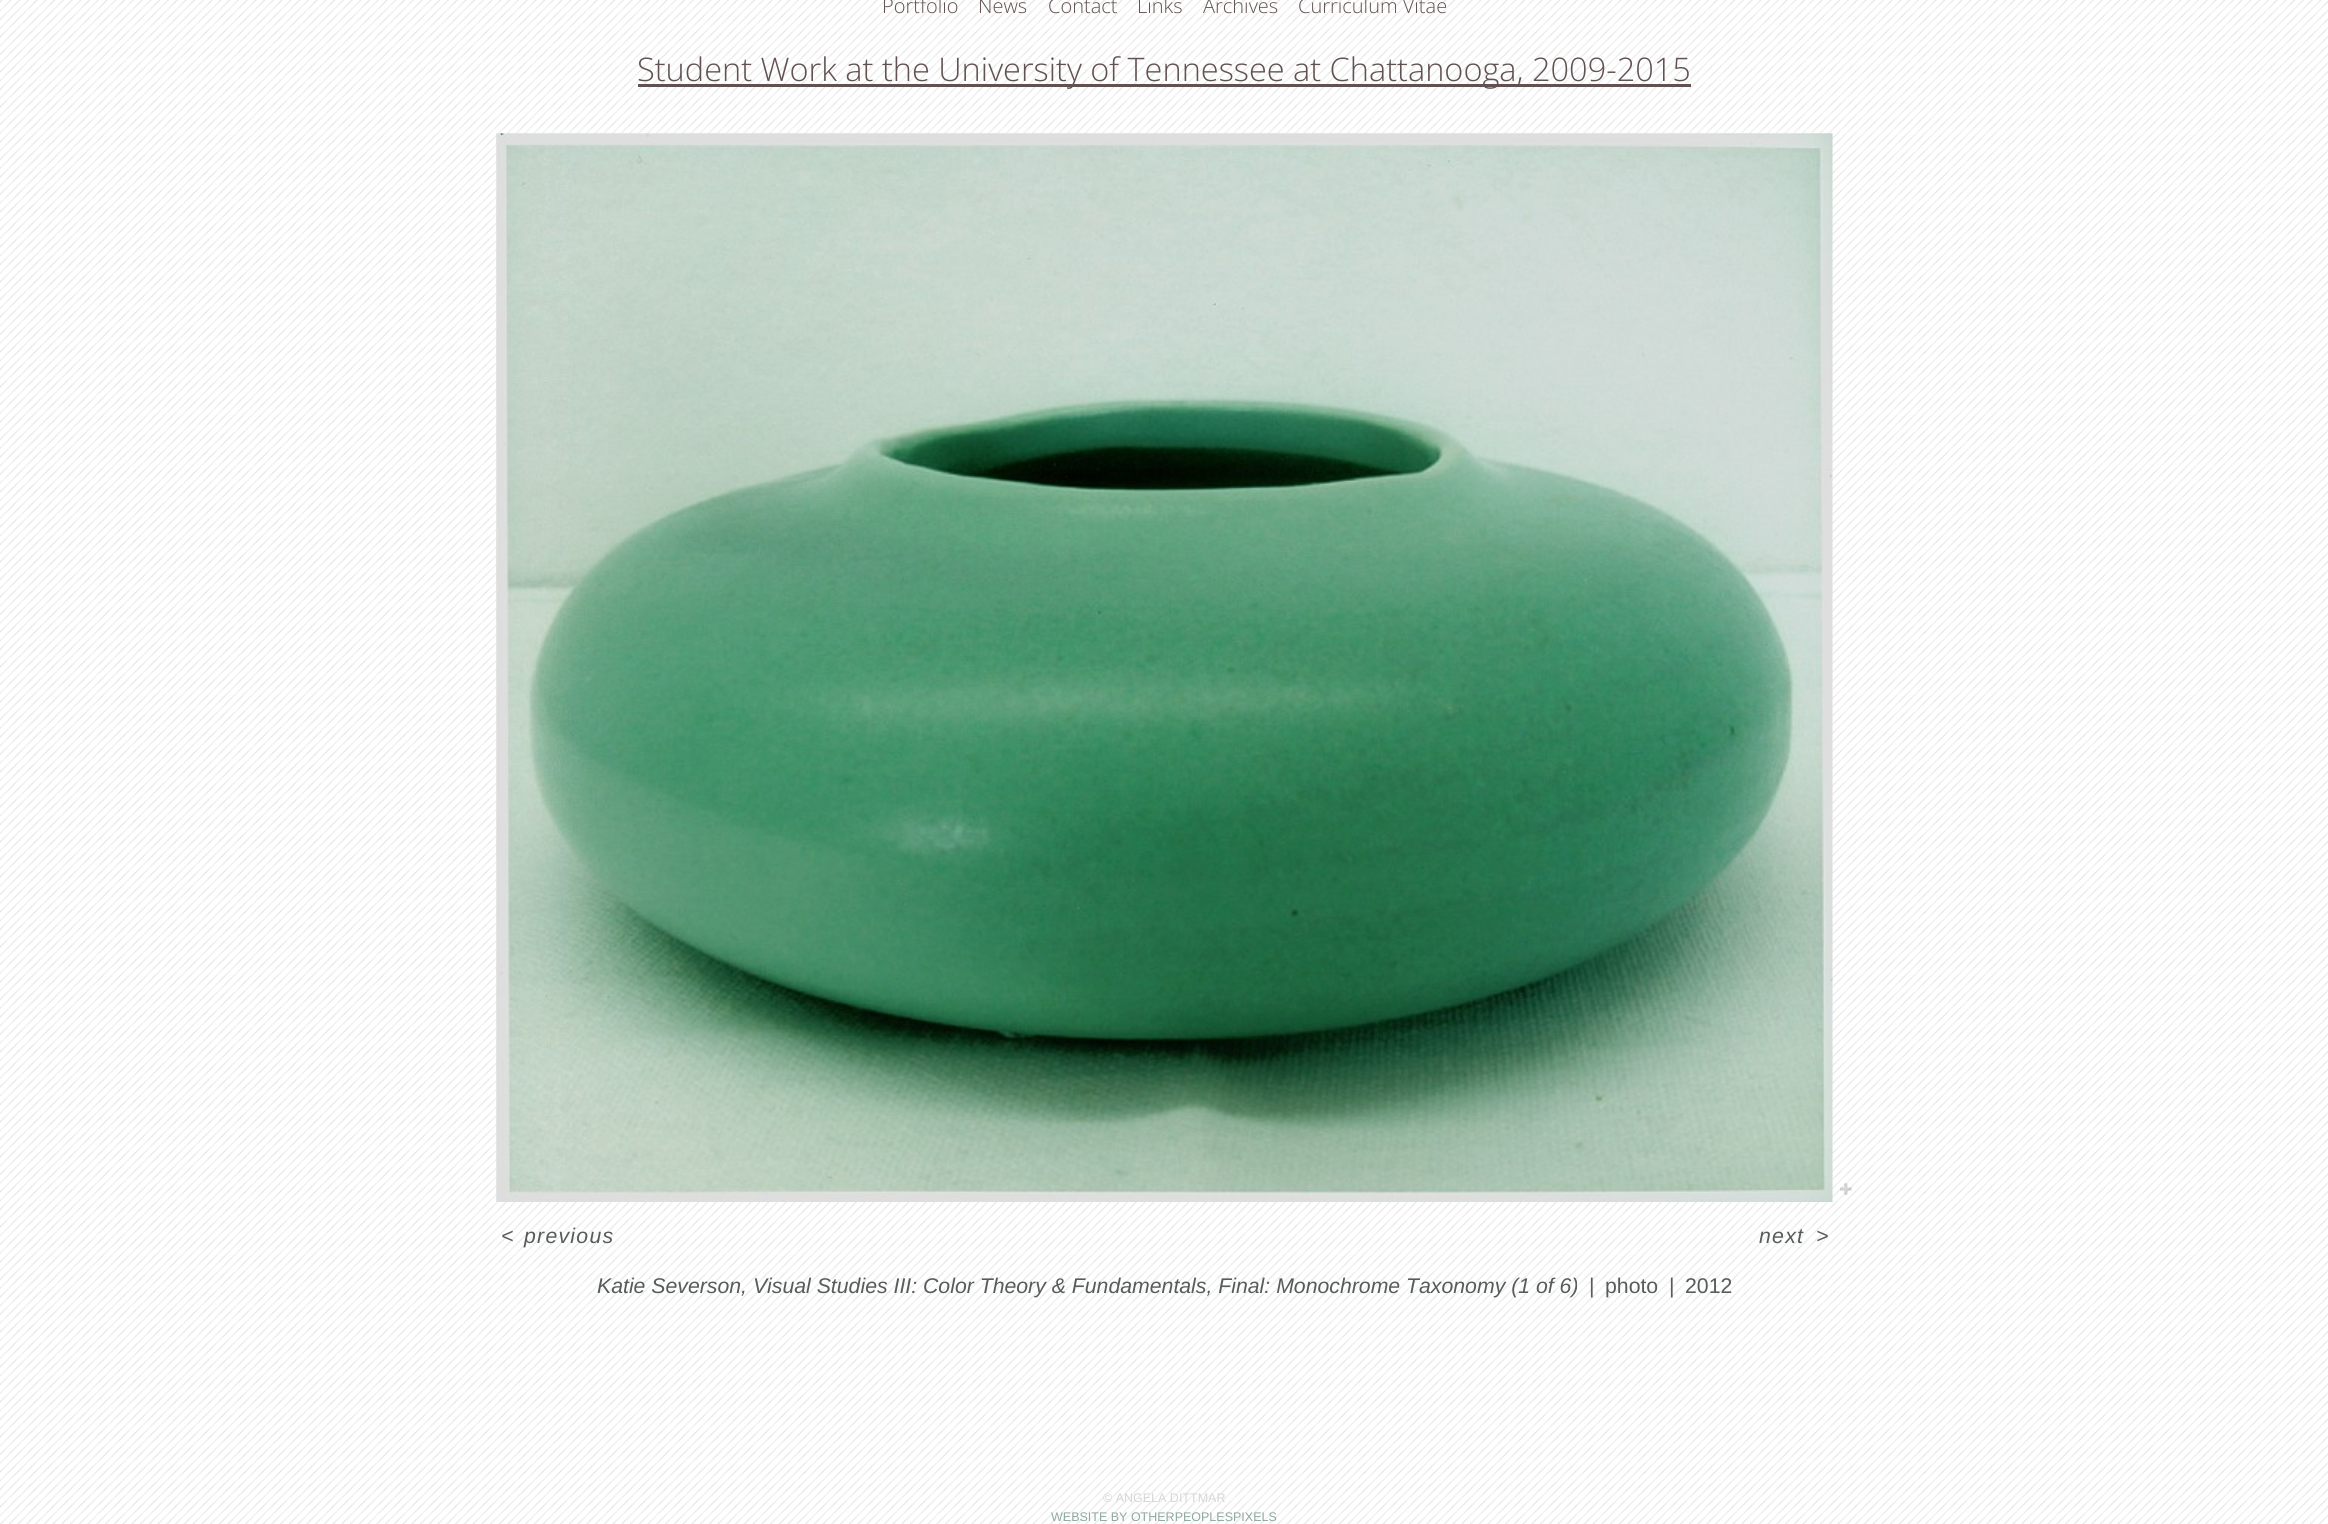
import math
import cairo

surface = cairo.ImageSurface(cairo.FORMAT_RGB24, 2328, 1524)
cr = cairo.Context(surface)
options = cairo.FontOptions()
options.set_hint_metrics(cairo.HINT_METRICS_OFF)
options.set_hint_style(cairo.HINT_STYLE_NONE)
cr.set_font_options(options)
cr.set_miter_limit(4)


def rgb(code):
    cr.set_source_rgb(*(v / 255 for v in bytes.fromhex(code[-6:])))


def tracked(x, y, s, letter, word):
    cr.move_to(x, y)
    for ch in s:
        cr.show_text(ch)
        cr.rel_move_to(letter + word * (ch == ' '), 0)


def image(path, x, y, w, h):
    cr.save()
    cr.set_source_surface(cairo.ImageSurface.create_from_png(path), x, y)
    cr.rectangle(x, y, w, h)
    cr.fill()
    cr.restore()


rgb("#ffffff")
cr.paint()
image("img/1.png", 0, 0, 2328, 1524)
rgb("#615251")
cr.rectangle(638, 84, 1053, 3)
cr.fill()
image("img/2.png", 496, 133, 1337, 1069)
image("img/3.png", 1840, 1183, 12, 12)
cr.select_font_face("Open Sans Light")
cr.set_font_size(20)
for x, y, s in [
    (882, 13, "Portfolio"),
    (978, 13, "News"),
    (1048, 13, "Contact"),
    (1137, 13, "Links"),
    (1203, 13, "Archives"),
    (1298, 13, "Curriculum Vitae"),
]:
    cr.move_to(x, y)
    cr.show_text(s)
cr.set_font_size(32.5)
cr.move_to(637, 81)
cr.show_text("Student Work at the University of Tennessee at Chattanooga, 2009-2015")
cr.select_font_face("Liberation Sans", cairo.FONT_SLANT_ITALIC)
cr.set_font_size(21.25)
rgb("#575c59")
for x, y, s in [
    (501, 1243, "<"),
    (524, 1243, "previous"),
    (1759, 1243, "next"),
    (1816, 1243, ">"),
]:
    tracked(x, y, s, 1.25, 0)
cr.move_to(597, 1293)
cr.show_text("Katie Severson, Visual Studies III: Color Theory & Fundamentals, Final: Monochrome Taxonomy (1 of 6)")
cr.select_font_face("Liberation Sans")
for x, y, s in [
    (1589, 1293, "|"),
    (1605, 1293, "photo"),
    (1669, 1293, "|"),
    (1685, 1293, "2012"),
]:
    cr.move_to(x, y)
    cr.show_text(s)
cr.set_font_size(12.5)
rgb("#d6d6d6")
cr.move_to(1103, 1502)
cr.show_text("© ANGELA DITTMAR")
rgb("#8ea99c")
cr.move_to(1051, 1521)
cr.show_text("WEBSITE BY OTHERPEOPLESPIXELS")
surface.write_to_png("page.png")
